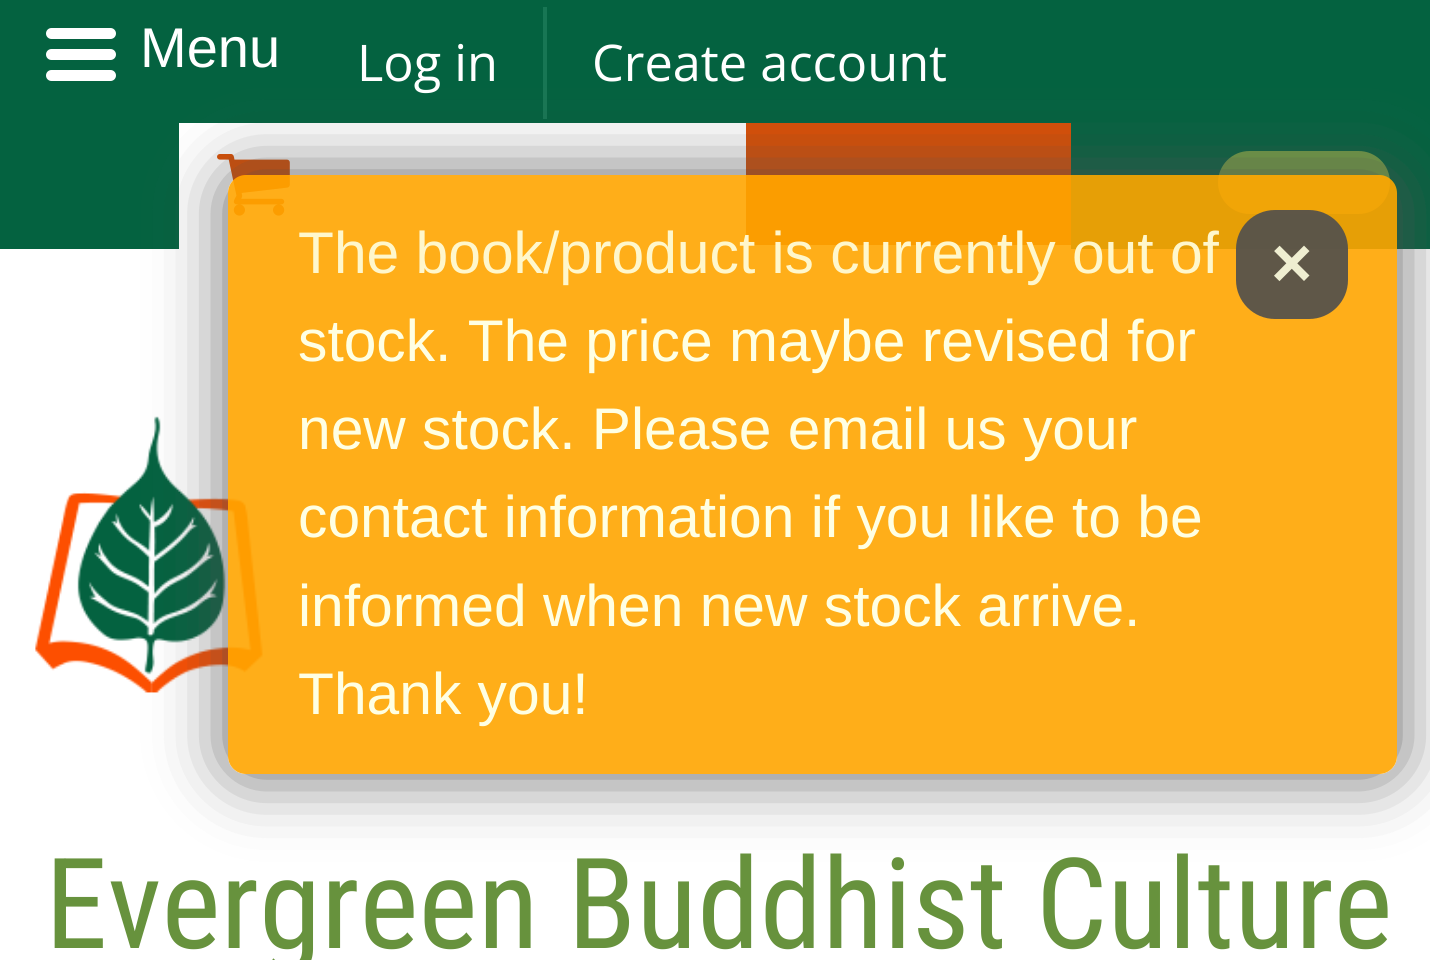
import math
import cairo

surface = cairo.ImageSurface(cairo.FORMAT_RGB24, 1430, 960)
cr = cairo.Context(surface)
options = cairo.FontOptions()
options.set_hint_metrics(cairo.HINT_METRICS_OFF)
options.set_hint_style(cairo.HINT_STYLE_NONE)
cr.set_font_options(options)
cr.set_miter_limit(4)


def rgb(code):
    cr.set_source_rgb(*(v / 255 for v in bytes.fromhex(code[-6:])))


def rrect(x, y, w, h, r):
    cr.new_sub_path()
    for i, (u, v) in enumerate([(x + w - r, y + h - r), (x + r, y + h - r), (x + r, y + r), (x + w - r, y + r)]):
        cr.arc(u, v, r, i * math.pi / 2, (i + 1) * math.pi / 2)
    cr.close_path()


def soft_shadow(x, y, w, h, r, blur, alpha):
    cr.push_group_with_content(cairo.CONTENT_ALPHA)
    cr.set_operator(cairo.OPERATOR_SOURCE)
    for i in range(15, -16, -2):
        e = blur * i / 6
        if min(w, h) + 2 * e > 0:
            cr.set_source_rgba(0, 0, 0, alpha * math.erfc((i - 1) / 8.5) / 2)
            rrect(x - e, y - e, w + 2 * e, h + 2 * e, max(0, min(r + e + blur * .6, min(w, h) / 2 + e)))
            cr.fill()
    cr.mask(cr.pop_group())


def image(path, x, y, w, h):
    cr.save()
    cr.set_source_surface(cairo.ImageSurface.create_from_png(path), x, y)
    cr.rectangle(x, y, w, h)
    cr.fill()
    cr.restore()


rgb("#ffffff")
cr.paint()
rgb("#046240")
cr.rectangle(0, 0, 1430, 249)
cr.fill()
rgb("#ffffff")
rrect(46, 28, 70, 11, 5.5)
cr.fill()
rrect(46, 49, 70, 11, 5.5)
cr.fill()
rrect(46, 70, 70, 11, 5.5)
cr.fill()
rgb("#187654")
cr.rectangle(543, 7, 4, 112)
cr.fill()
rgb("#ffffff")
cr.rectangle(179, 123, 892, 126)
cr.fill()
image("img/1.png", 217, 154, 73, 62)
rgb("#db4f04")
cr.rectangle(746, 123, 325, 122)
cr.fill()
rgb("#729f44")
rrect(1218, 151, 172, 63, 31.5)
cr.fill()
image("img/2.png", 35, 416, 228, 277)
cr.save()
cr.set_fill_rule(cairo.FILL_RULE_EVEN_ODD)
cr.new_path()
cr.move_to(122, 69)
cr.line_to(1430, 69)
cr.line_to(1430, 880)
cr.line_to(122, 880)
cr.close_path()
cr.move_to(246, 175)
cr.line_to(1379, 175)
cr.curve_to(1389, 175, 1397, 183, 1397, 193)
cr.line_to(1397, 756)
cr.curve_to(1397, 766, 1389, 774, 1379, 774)
cr.line_to(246, 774)
cr.curve_to(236, 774, 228, 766, 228, 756)
cr.line_to(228, 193)
cr.curve_to(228, 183, 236, 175, 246, 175)
cr.close_path()
cr.clip()
rgb("#505050")
soft_shadow(228, 175, 1169, 599, 18, 35, 0.9)
cr.restore()
cr.set_source_rgba(1, 0.647, 0, 0.9)
rrect(228, 175, 1169, 599, 18)
cr.fill()
cr.set_source_rgba(0.306, 0.306, 0.306, 0.9)
rrect(1236, 210, 112, 109, 39)
cr.fill()
cr.select_font_face("Liberation Sans")
cr.set_font_size(56)
rgb("#ffffff")
cr.move_to(140, 67)
cr.show_text("Menu")
cr.select_font_face("Open Sans")
cr.set_font_size(50.5)
cr.move_to(357, 81)
cr.show_text("Log in")
cr.move_to(592, 81)
cr.show_text("Create account")
cr.select_font_face("Roboto Condensed")
cr.set_font_size(126)
rgb("#67923d")
cr.move_to(45, 948)
cr.show_text("Evergreen Buddhist Culture")
cr.select_font_face("Liberation Sans")
cr.set_font_size(58.75)
rgb("#fff7cc")
cr.move_to(298, 273)
cr.show_text("The book/product is currently out of")
rgb("#ffffe3")
for x, y, s in [
    (298, 361, "stock. The price maybe revised for"),
    (298, 449, "new stock. Please email us your"),
    (298, 537, "contact information if you like to be"),
    (298, 626, "informed when new stock arrive."),
    (298, 714, "Thank you!"),
]:
    cr.move_to(x, y)
    cr.show_text(s)
cr.select_font_face("Liberation Sans", cairo.FONT_SLANT_NORMAL, cairo.FONT_WEIGHT_BOLD)
cr.set_font_size(71)
rgb("#efeed1")
cr.move_to(1271, 287)
cr.show_text("×")
surface.write_to_png("page.png")
